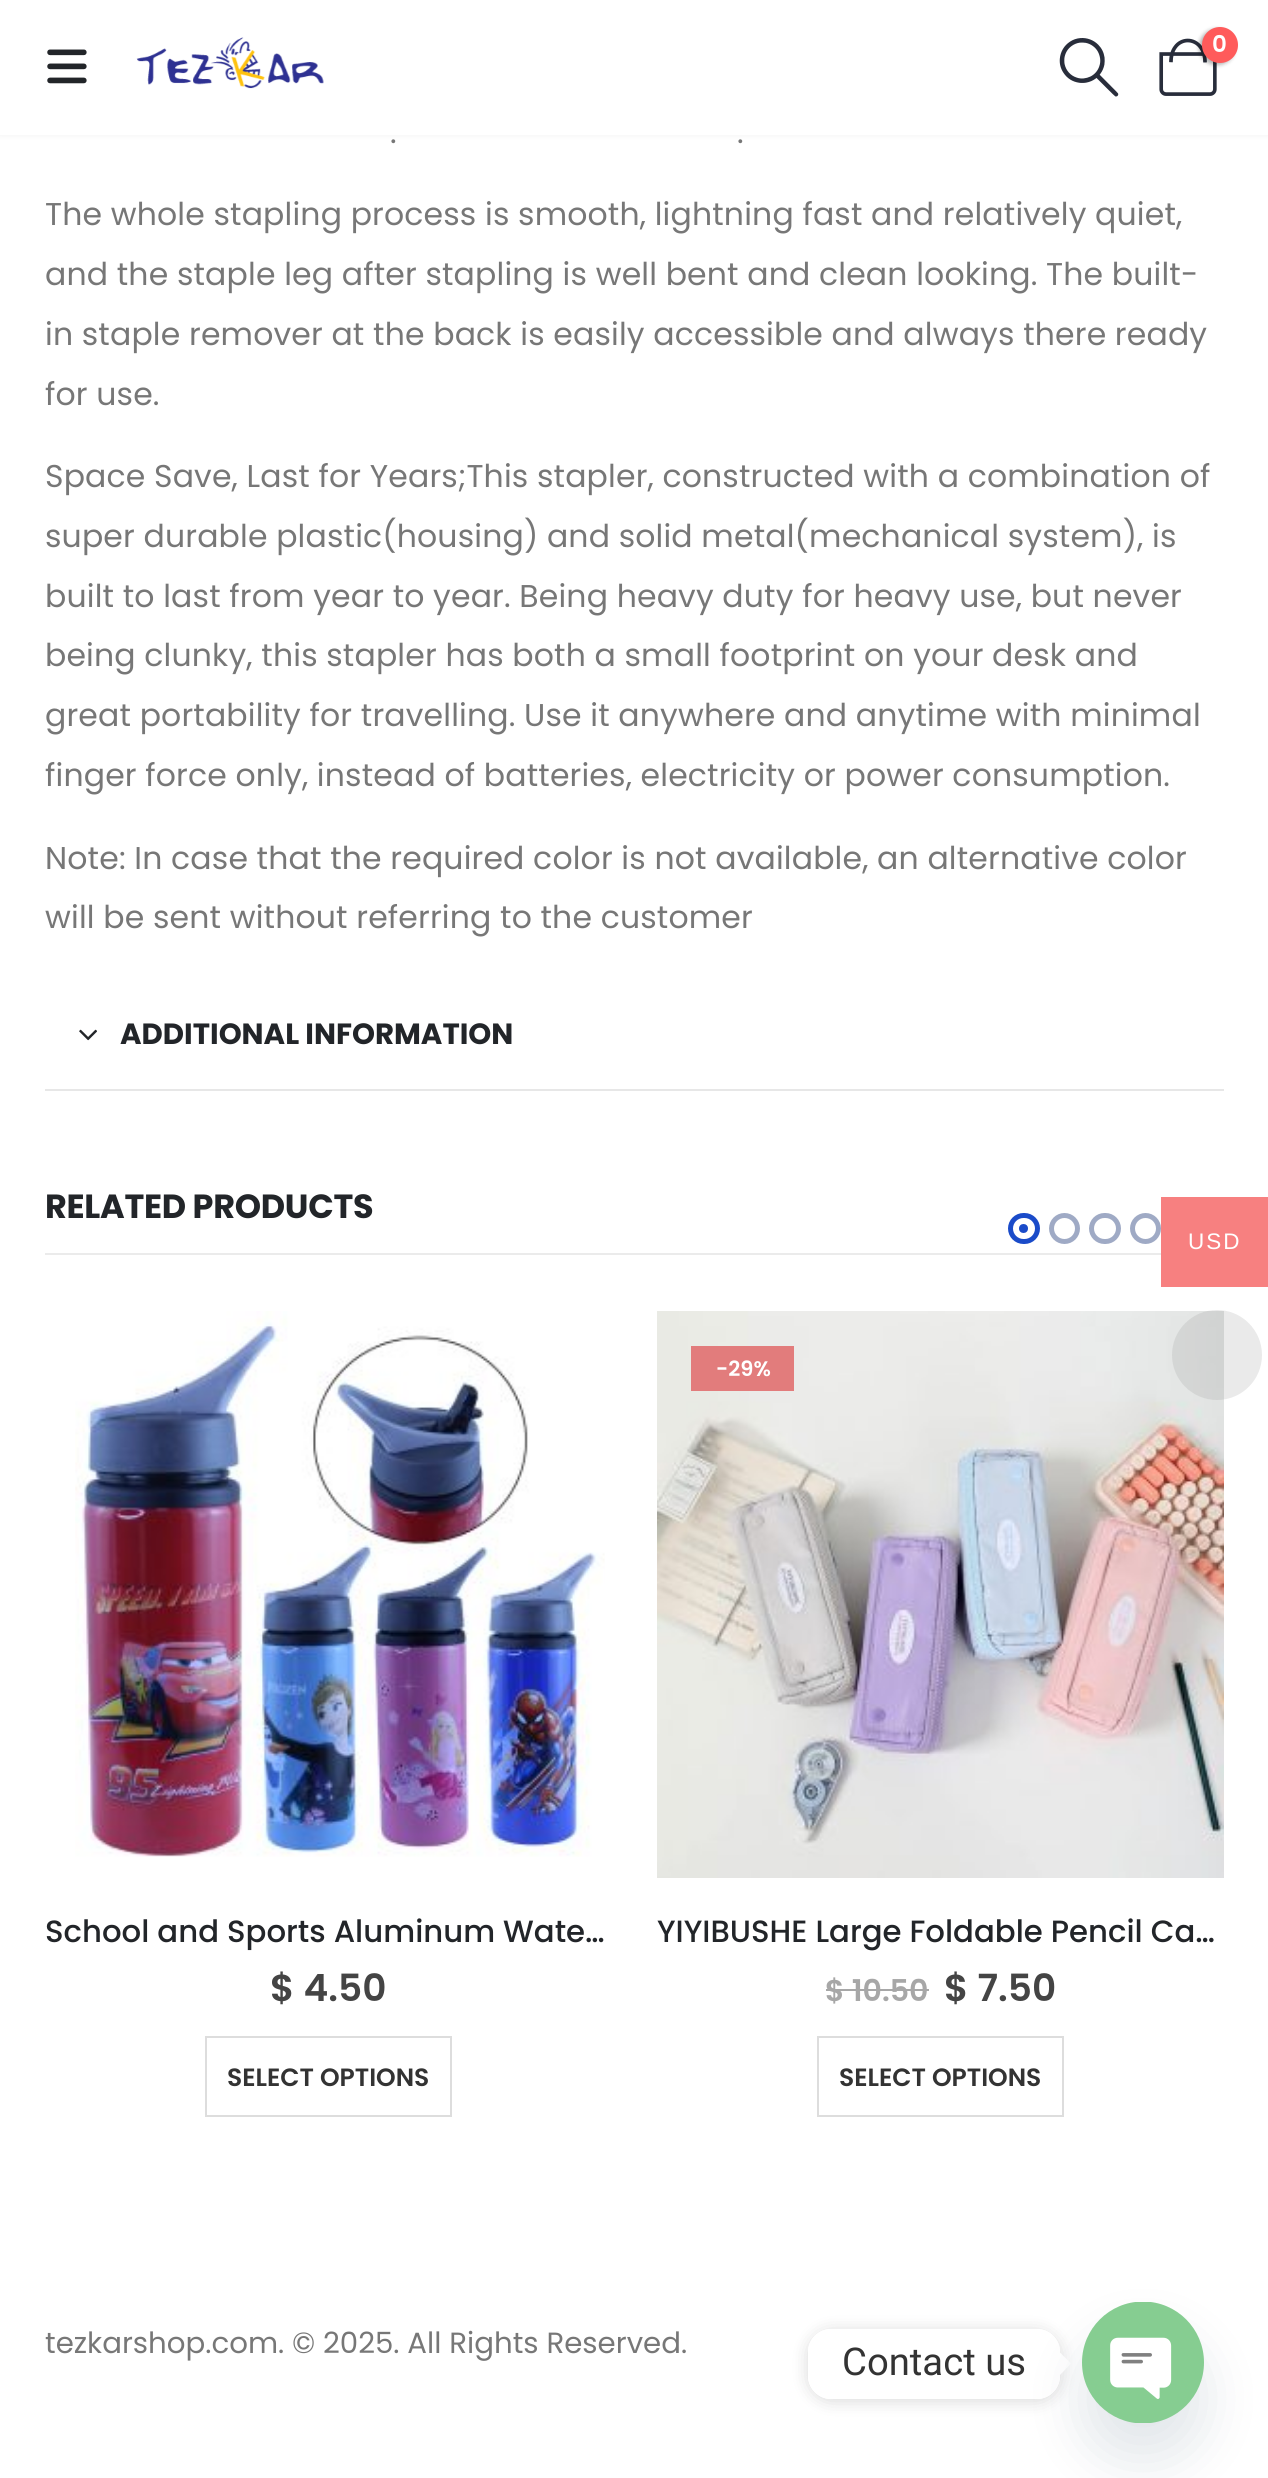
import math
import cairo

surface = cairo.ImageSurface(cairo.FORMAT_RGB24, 1268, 2478)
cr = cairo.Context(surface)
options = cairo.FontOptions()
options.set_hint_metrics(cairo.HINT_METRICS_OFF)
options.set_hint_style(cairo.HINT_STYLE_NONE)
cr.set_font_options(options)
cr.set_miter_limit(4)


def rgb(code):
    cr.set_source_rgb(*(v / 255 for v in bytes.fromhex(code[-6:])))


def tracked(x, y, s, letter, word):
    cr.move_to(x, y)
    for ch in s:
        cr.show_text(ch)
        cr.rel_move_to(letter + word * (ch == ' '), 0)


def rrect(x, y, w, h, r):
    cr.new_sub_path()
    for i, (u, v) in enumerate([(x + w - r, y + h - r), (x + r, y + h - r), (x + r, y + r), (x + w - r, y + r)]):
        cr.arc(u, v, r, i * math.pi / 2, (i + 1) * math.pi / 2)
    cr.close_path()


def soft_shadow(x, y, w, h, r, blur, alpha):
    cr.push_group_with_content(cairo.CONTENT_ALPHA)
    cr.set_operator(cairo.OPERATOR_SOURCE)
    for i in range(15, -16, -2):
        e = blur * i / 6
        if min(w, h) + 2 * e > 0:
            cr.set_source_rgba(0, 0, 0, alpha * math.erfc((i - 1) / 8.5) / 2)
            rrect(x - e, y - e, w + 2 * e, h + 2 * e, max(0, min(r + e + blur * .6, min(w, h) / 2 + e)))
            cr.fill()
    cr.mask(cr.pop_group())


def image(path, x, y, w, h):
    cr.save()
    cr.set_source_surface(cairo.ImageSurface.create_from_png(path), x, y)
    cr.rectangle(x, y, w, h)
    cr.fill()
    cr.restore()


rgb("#ffffff")
cr.paint()
rgb("#000000")
soft_shadow(0, 0, 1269, 135, 0, 3.5, 0.06)
rgb("#ffffff")
cr.rectangle(0, 0, 1268, 135)
cr.fill()
image("img/1.png", 47, 49, 40, 35)
image("img/2.png", 136, 37, 188, 52)
image("img/3.png", 1059, 38, 60, 59)
image("img/4.png", 1159, 38, 58, 58)
rgb("#000000")
soft_shadow(1199, 29, 36, 36, 18, 2, 0.3)
rgb("#ff5b5b")
cr.arc(1220, 45, 18, 0, 2 * math.pi)
cr.fill()
rgb("#e7e7e7")
cr.rectangle(45, 1089, 1179, 2)
cr.fill()
image("img/5.png", 79, 1029, 18, 12)
rgb("#ebebeb")
cr.rectangle(45, 1253, 1116, 2)
cr.fill()
rrect(1010.5, 1215.5, 27, 26, 13)
rgb("#1a4bc9")
cr.set_line_width(5)
cr.stroke()
cr.arc(1023.5, 1228.5, 4.5, 0, 2 * math.pi)
cr.fill()
cr.arc(1064.5, 1228.5, 13, 0, 2 * math.pi)
rgb("#9faac5")
cr.stroke()
rrect(1091.5, 1215.5, 27, 26, 13)
cr.stroke()
cr.arc(1145.5, 1228.5, 13, 0, 2 * math.pi)
cr.stroke()
image("img/6.png", 75, 1311, 530, 546)
cr.rectangle(206, 2037, 245, 79)
rgb("#dddddd")
cr.set_line_width(2)
cr.stroke()
image("img/7.png", 657, 1311, 567, 567)
rgb("#e27c7c")
cr.rectangle(691, 1346, 103, 45)
cr.fill()
rgb("#a7a7a7")
cr.rectangle(826, 1989, 103, 2)
cr.fill()
cr.rectangle(818, 2037, 245, 79)
rgb("#dddddd")
cr.stroke()
rgb("#f78080")
cr.rectangle(1161, 1197, 107, 90)
cr.fill()
cr.set_source_rgba(0.6, 0.6, 0.6, 0.2)
cr.arc(1217, 1355, 45, 0, 2 * math.pi)
cr.fill()
cr.save()
cr.set_fill_rule(cairo.FILL_RULE_EVEN_ODD)
cr.new_path()
cr.move_to(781, 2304)
cr.line_to(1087, 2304)
cr.line_to(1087, 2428)
cr.line_to(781, 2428)
cr.close_path()
cr.move_to(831, 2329)
cr.line_to(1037, 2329)
cr.curve_to(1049.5, 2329, 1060, 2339.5, 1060, 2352)
cr.line_to(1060, 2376)
cr.curve_to(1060, 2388.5, 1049.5, 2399, 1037, 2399)
cr.line_to(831, 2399)
cr.curve_to(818.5, 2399, 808, 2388.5, 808, 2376)
cr.line_to(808, 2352)
cr.curve_to(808, 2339.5, 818.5, 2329, 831, 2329)
cr.close_path()
cr.clip()
rgb("#000000")
soft_shadow(808, 2331, 252, 70, 23, 8.5, 0.15)
cr.restore()
rgb("#ffffff")
rrect(808, 2329, 252, 70, 23)
cr.fill()
cr.new_path()
cr.move_to(1060, 2375)
cr.line_to(1060, 2352.5)
cr.line_to(1071, 2363.5)
cr.close_path()
cr.fill()
rgb("#49687e")
soft_shadow(1082, 2338, 122, 121, 60.5, 27, 0.16)
image("img/8.png", 1082, 2302, 122, 121)
cr.select_font_face("Poppins SemiBold")
cr.set_font_size(23)
rgb("#ffffff")
cr.move_to(1212, 52)
cr.show_text("0")
cr.select_font_face("Poppins")
cr.set_font_size(31.5)
rgb("#777777")
for x, y, s in [
    (390, 143, "."),
    (737, 143, "."),
    (45, 225, "The whole stapling process is smooth, lightning fast and relatively quiet,"),
    (45, 285, "and the staple leg after stapling is well bent and clean looking. The built-"),
    (45, 345, "in staple remover at the back is easily accessible and always there ready"),
    (45, 405, "for use."),
    (45, 487, "Space Save, Last for Years;This stapler, constructed with a combination of"),
    (45, 547, "super durable plastic(housing) and solid metal(mechanical system), is"),
    (45, 607, "built to last from year to year. Being heavy duty for heavy use, but never"),
    (45, 666, "being clunky, this stapler has both a small footprint on your desk and"),
    (45, 726, "great portability for travelling. Use it anywhere and anytime with minimal"),
    (45, 786, "finger force only, instead of batteries, electricity or power consumption."),
    (45, 869, "Note: In case that the required color is not available, an alternative color"),
    (45, 928, "will be sent without referring to the customer"),
]:
    tracked(x, y, s, 0.15, 0)
cr.select_font_face("Poppins", cairo.FONT_SLANT_NORMAL, cairo.FONT_WEIGHT_BOLD)
cr.set_font_size(29.25)
rgb("#222529")
cr.move_to(120, 1044)
cr.show_text("ADDITIONAL INFORMATION")
cr.set_font_size(33.5)
tracked(45, 1218, "RELATED PRODUCTS", -0.3, 0)
cr.select_font_face("Poppins Medium")
cr.set_font_size(30.75)
cr.move_to(45, 1942)
cr.show_text("School and Sports Aluminum Wate…")
cr.select_font_face("Poppins SemiBold")
cr.set_font_size(37.5)
rgb("#444444")
cr.move_to(270, 2001)
cr.show_text("$ 4.50")
cr.set_font_size(25)
rgb("#333333")
cr.move_to(227, 2086)
cr.show_text("SELECT OPTIONS")
cr.set_font_size(21)
rgb("#ffffff")
cr.move_to(716, 1376)
cr.show_text("-29%")
cr.select_font_face("Poppins Medium")
cr.set_font_size(30.75)
rgb("#222529")
cr.move_to(657, 1942)
cr.show_text("YIYIBUSHE Large Foldable Pencil Ca…")
cr.select_font_face("Poppins SemiBold")
cr.set_font_size(30)
rgb("#a7a7a7")
cr.move_to(825, 2001)
cr.show_text("$ 10.50")
cr.set_font_size(37.5)
rgb("#444444")
cr.move_to(944, 2001)
cr.show_text("$ 7.50")
cr.set_font_size(25)
rgb("#333333")
cr.move_to(839, 2086)
cr.show_text("SELECT OPTIONS")
cr.select_font_face("Poppins")
cr.set_font_size(29.25)
rgb("#777777")
cr.move_to(45, 2353)
cr.show_text("tezkarshop.com. © 2025. All Rights Reserved.")
cr.select_font_face("Liberation Sans")
cr.set_font_size(22.5)
rgb("#ffffff")
tracked(1188, 1249, "USD", 2, 0)
cr.select_font_face("Roboto")
cr.set_font_size(38.25)
rgb("#333333")
cr.move_to(842, 2375)
cr.show_text("Contact us")
surface.write_to_png("page.png")
